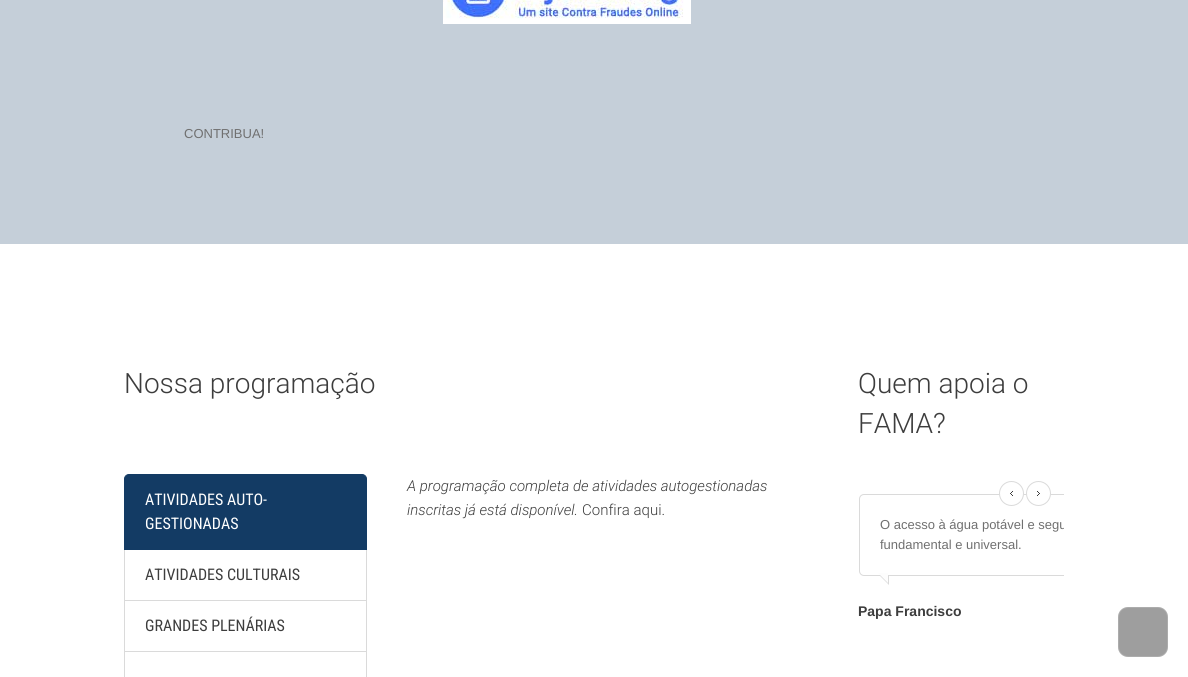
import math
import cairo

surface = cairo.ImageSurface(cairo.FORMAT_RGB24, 1188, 677)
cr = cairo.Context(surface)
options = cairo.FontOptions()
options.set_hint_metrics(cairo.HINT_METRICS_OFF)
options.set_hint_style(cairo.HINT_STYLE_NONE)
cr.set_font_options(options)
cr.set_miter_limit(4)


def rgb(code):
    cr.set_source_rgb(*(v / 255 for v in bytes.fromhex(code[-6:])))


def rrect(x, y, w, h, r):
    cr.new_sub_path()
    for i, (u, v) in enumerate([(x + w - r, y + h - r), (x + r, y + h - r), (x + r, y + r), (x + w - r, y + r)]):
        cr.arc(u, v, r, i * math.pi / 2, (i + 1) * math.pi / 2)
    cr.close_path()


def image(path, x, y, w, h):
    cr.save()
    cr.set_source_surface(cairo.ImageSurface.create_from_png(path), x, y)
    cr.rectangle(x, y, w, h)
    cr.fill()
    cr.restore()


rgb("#ffffff")
cr.paint()
rgb("#c5cfd9")
cr.rectangle(0, 0, 1188, 244)
cr.fill()
image("img/1.png", 443, 0, 248, 24)
rgb("#133b64")
cr.new_path()
cr.move_to(129, 474.5)
cr.line_to(362, 474.5)
cr.curve_to(364.5, 474.5, 366.5, 476.5, 366.5, 479)
cr.line_to(366.5, 549.5)
cr.line_to(124.5, 549.5)
cr.line_to(124.5, 479)
cr.curve_to(124.5, 476.5, 126.5, 474.5, 129, 474.5)
cr.close_path()
cr.fill_preserve()
cr.set_line_width(1)
cr.stroke()
for x, y, w, h, color in [
    (366, 550, 1, 127, "#dadada"),
    (124, 600, 243, 1, "#dadada"),
    (124, 550, 1, 51, "#dadada"),
    (124, 651, 243, 1, "#dadada"),
    (124, 601, 1, 76, "#dadada"),
]:
    rgb(color)
    cr.rectangle(x, y, w, h)
    cr.fill()
cr.save()
cr.rectangle(858, 494, 206, 127)
cr.clip()
rrect(859.5, 494.5, 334, 81, 4.5)
cr.stroke()
cr.restore()
rgb("#ffffff")
cr.arc(1011.5, 493.5, 12, 0, 2 * math.pi)
cr.fill_preserve()
rgb("#dadada")
cr.stroke()
for x, y, w, h, color in [
    (1010, 493, 1, 1, "#3d3d3d"),
    (1011, 492, 1, 1, "#3d3d3d"),
    (1011, 494, 1, 1, "#3d3d3d"),
    (1012, 491, 1, 1, "#3d3d3d"),
    (1012, 495, 1, 1, "#3d3d3d"),
]:
    rgb(color)
    cr.rectangle(x, y, w, h)
    cr.fill()
rgb("#ffffff")
cr.arc(1038.5, 493.5, 12, 0, 2 * math.pi)
cr.fill_preserve()
rgb("#dadada")
cr.stroke()
for x, y, w, h, color in [
    (1039, 493, 1, 1, "#3d3d3d"),
    (1037, 491, 1, 1, "#3d3d3d"),
    (1037, 495, 1, 1, "#3d3d3d"),
    (1038, 492, 1, 1, "#3d3d3d"),
    (1038, 494, 1, 1, "#3d3d3d"),
]:
    rgb(color)
    cr.rectangle(x, y, w, h)
    cr.fill()
rgb("#dadada")
cr.new_path()
cr.move_to(879, 575)
cr.line_to(889, 575)
cr.line_to(889, 585)
cr.close_path()
cr.fill()
rgb("#fdfdfd")
cr.new_path()
cr.move_to(878, 573)
cr.line_to(888, 573)
cr.line_to(888, 583)
cr.close_path()
cr.fill()
rgb("#9e9e9e")
rrect(1118, 607, 50, 50, 10)
cr.fill()
rrect(1118.5, 607.5, 49, 49, 9.5)
cr.set_source_rgba(1, 1, 1, 0.15)
cr.stroke()
cr.select_font_face("Liberation Sans")
cr.set_font_size(13)
rgb("#707070")
cr.move_to(184, 138)
cr.show_text("CONTRIBUA!")
cr.select_font_face("Roboto Light")
cr.set_font_size(28)
rgb("#3d3d3d")
for x, y, s in [
    (124, 393, "Nossa programação"),
    (858, 393, "Quem apoia o"),
    (858, 433, "FAMA?"),
]:
    cr.move_to(x, y)
    cr.show_text(s)
cr.select_font_face("Roboto Condensed")
cr.set_font_size(16)
rgb("#ffffff")
cr.move_to(145, 505)
cr.show_text("ATIVIDADES AUTO-")
cr.move_to(145, 529)
cr.show_text("GESTIONADAS")
rgb("#3d3d3d")
cr.move_to(145, 580)
cr.show_text("ATIVIDADES CULTURAIS")
cr.move_to(145, 631)
cr.show_text("GRANDES PLENÁRIAS")
cr.select_font_face("Roboto Light", cairo.FONT_SLANT_ITALIC)
cr.set_font_size(15)
cr.move_to(407, 491)
cr.show_text("A programação completa de atividades autogestionadas")
cr.move_to(407, 515)
cr.show_text("inscritas já está disponível.")
cr.select_font_face("Roboto Light")
cr.move_to(582, 515)
cr.show_text("Confira aqui.")
cr.save()
cr.rectangle(858, 494, 206, 127)
cr.clip()
cr.select_font_face("Liberation Sans")
cr.set_font_size(13)
rgb("#707070")
cr.move_to(880, 529)
cr.show_text("O acesso à água potável e segu")
cr.restore()
cr.select_font_face("Liberation Sans")
cr.set_font_size(13)
rgb("#707070")
cr.move_to(880, 549)
cr.show_text("fundamental e universal.")
cr.select_font_face("Liberation Sans", cairo.FONT_SLANT_NORMAL, cairo.FONT_WEIGHT_BOLD)
cr.set_font_size(14)
rgb("#3d3d3d")
cr.move_to(858, 616)
cr.show_text("Papa Francisco")
surface.write_to_png("page.png")
